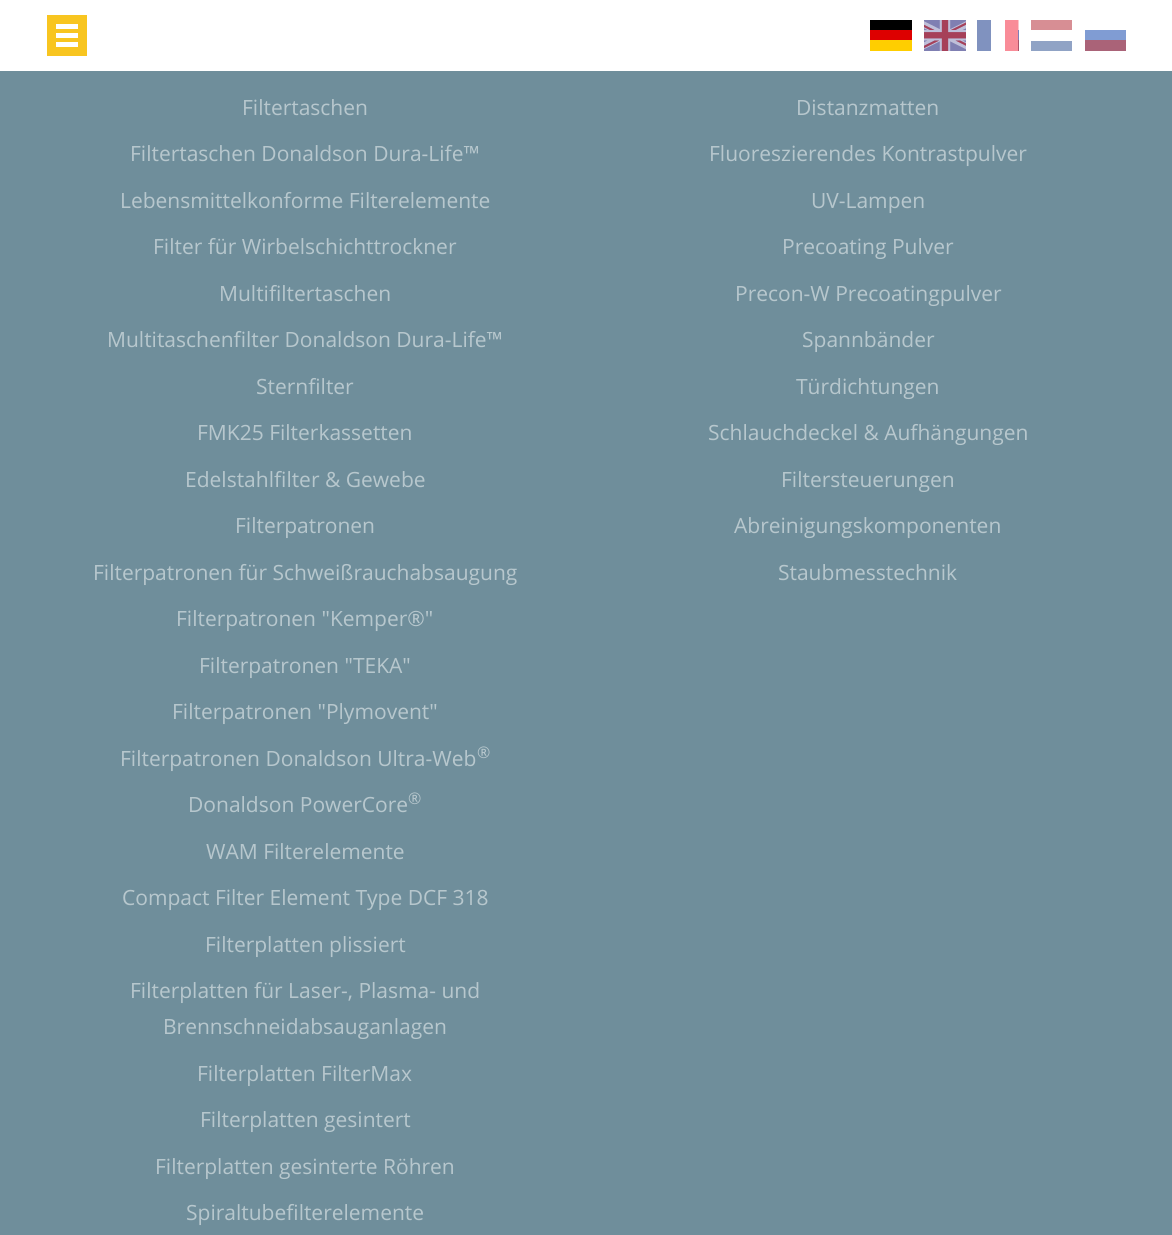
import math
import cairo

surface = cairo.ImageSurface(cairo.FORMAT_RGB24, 1172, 1235)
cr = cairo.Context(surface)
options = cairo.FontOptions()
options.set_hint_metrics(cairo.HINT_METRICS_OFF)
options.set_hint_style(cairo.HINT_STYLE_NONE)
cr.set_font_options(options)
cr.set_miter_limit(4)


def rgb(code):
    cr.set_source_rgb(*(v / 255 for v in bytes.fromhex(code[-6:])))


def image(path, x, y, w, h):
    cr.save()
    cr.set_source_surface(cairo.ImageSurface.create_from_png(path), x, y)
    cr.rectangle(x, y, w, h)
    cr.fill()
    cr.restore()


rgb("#6f8e9b")
cr.paint()
for x, y, w, h, color in [
    (0, 0, 1172, 71, "#ffffff"),
    (47, 15, 40, 41, "#f8c520"),
    (56, 24, 22, 5, "#ffffff"),
    (56, 33, 22, 5, "#ffffff"),
    (56, 42, 22, 5, "#ffffff"),
]:
    rgb(color)
    cr.rectangle(x, y, w, h)
    cr.fill()
image("img/1.png", 870, 20, 42, 31)
image("img/2.png", 924, 20, 42, 31)
image("img/3.png", 977, 20, 42, 31)
image("img/4.png", 1031, 20, 41, 31)
image("img/5.png", 1085, 30, 41, 21)
cr.select_font_face("Open Sans")
cr.set_font_size(21)
rgb("#b7c7cd")
for x, y, s in [
    (242, 115, "Filtertaschen"),
    (130, 161, "Filtertaschen Donaldson Dura-Life™"),
    (120, 208, "Lebensmittelkonforme Filterelemente"),
    (153, 254, "Filter für Wirbelschichttrockner"),
    (219, 301, "Multifiltertaschen"),
    (107, 347, "Multitaschenfilter Donaldson Dura-Life™"),
    (256, 394, "Sternfilter"),
    (197, 440, "FMK25 Filterkassetten"),
    (185, 487, "Edelstahlfilter & Gewebe"),
    (235, 533, "Filterpatronen"),
    (93, 580, "Filterpatronen für Schweißrauchabsaugung"),
    (176, 626, "Filterpatronen \"Kemper®\""),
    (199, 673, "Filterpatronen \"TEKA\""),
    (172, 719, "Filterpatronen \"Plymovent\""),
    (120, 766, "Filterpatronen Donaldson Ultra-Web"),
]:
    cr.move_to(x, y)
    cr.show_text(s)
cr.set_font_size(16)
cr.move_to(477, 758)
cr.show_text("®")
cr.set_font_size(21)
cr.move_to(188, 812)
cr.show_text("Donaldson PowerCore")
cr.set_font_size(16)
cr.move_to(408, 804)
cr.show_text("®")
cr.set_font_size(21)
for x, y, s in [
    (206, 859, "WAM Filterelemente"),
    (122, 905, "Compact Filter Element Type DCF 318"),
    (205, 952, "Filterplatten plissiert"),
    (130, 998, "Filterplatten für Laser-, Plasma- und"),
    (163, 1034, "Brennschneidabsauganlagen"),
    (197, 1081, "Filterplatten FilterMax"),
    (200, 1127, "Filterplatten gesintert"),
    (155, 1174, "Filterplatten gesinterte Röhren"),
    (186, 1220, "Spiraltubefilterelemente"),
    (796, 115, "Distanzmatten"),
    (709, 161, "Fluoreszierendes Kontrastpulver"),
    (811, 208, "UV-Lampen"),
    (782, 254, "Precoating Pulver"),
    (735, 301, "Precon-W Precoatingpulver"),
    (802, 347, "Spannbänder"),
    (796, 394, "Türdichtungen"),
    (708, 440, "Schlauchdeckel & Aufhängungen"),
    (781, 487, "Filtersteuerungen"),
    (734, 533, "Abreinigungskomponenten"),
    (778, 580, "Staubmesstechnik"),
]:
    cr.move_to(x, y)
    cr.show_text(s)
surface.write_to_png("page.png")
